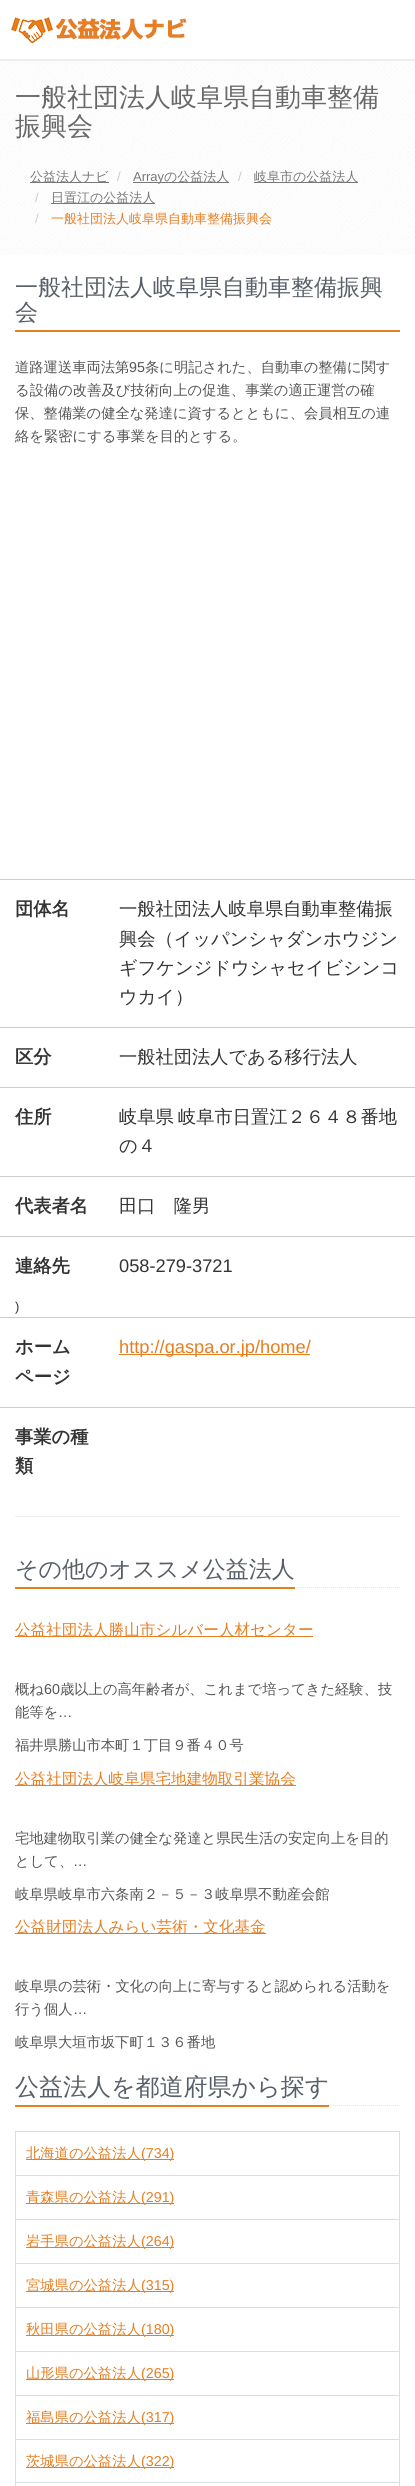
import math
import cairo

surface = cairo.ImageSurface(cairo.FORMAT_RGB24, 415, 2486)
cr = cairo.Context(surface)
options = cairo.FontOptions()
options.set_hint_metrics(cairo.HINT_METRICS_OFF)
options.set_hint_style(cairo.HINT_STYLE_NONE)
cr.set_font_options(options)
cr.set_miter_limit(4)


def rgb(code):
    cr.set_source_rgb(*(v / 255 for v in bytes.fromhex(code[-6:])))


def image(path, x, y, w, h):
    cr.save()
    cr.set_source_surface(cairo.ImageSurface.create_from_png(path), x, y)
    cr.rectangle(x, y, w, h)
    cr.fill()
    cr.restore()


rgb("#ffffff")
cr.paint()
rgb("#eeeeee")
cr.rectangle(0, 59, 415, 2)
cr.fill()
image("img/1.png", 11, 17, 176, 26)
image("img/2.png", 0, 61, 415, 194)
for x, y, w, h, color in [
    (30, 182, 79, 1, "#777777"),
    (133, 182, 31, 1, "#777777"),
    (164, 182, 65, 1, "#777777"),
    (254, 182, 104, 1, "#777777"),
    (51, 203, 104, 1, "#777777"),
    (15, 330, 385, 2, "#e67e22"),
    (0, 879, 415, 1, "#cccccc"),
    (0, 1027, 415, 1, "#cccccc"),
    (0, 1087, 415, 1, "#cccccc"),
    (0, 1176, 415, 1, "#cccccc"),
    (0, 1236, 415, 1, "#cccccc"),
    (0, 1317, 415, 1, "#cccccc"),
    (119, 1354, 191, 1, "#e67e22"),
    (0, 1407, 415, 1, "#cccccc"),
    (15, 1516, 385, 1, "#eeeeee"),
]:
    rgb(color)
    cr.rectangle(x, y, w, h)
    cr.fill()
cr.new_path()
cr.move_to(15, 1587.5)
cr.line_to(400, 1587.5)
rgb("#e4e9f0")
cr.set_line_width(1)
cr.set_dash([1, 1])
cr.stroke()
for x, y, w, h, color in [
    (15, 1587, 280, 2, "#e67e22"),
    (15, 1636, 298, 1, "#e67e22"),
    (15, 1785, 281, 1, "#e67e22"),
    (15, 1933, 251, 1, "#e67e22"),
]:
    rgb(color)
    cr.rectangle(x, y, w, h)
    cr.fill()
cr.new_path()
cr.move_to(15, 2105.5)
cr.line_to(400, 2105.5)
rgb("#e4e9f0")
cr.stroke()
rgb("#e67e22")
cr.rectangle(15, 2105, 314, 2)
cr.fill()
cr.rectangle(15.5, 2131.5, 384, 44)
rgb("#dddddd")
cr.set_dash([])
cr.stroke()
rgb("#e67e22")
cr.rectangle(26, 2159, 148, 1)
cr.fill()
cr.rectangle(15.5, 2175.5, 384, 44)
rgb("#dddddd")
cr.stroke()
rgb("#e67e22")
cr.rectangle(26, 2203, 148, 1)
cr.fill()
cr.rectangle(15.5, 2219.5, 384, 44)
rgb("#dddddd")
cr.stroke()
rgb("#e67e22")
cr.rectangle(26, 2247, 148, 1)
cr.fill()
cr.rectangle(15.5, 2263.5, 384, 44)
rgb("#dddddd")
cr.stroke()
rgb("#e67e22")
cr.rectangle(26, 2291, 148, 1)
cr.fill()
cr.rectangle(15.5, 2307.5, 384, 44)
rgb("#dddddd")
cr.stroke()
rgb("#e67e22")
cr.rectangle(26, 2335, 148, 1)
cr.fill()
cr.rectangle(15.5, 2351.5, 384, 44)
rgb("#dddddd")
cr.stroke()
rgb("#e67e22")
cr.rectangle(26, 2379, 148, 1)
cr.fill()
cr.rectangle(15.5, 2395.5, 384, 44)
rgb("#dddddd")
cr.stroke()
rgb("#e67e22")
cr.rectangle(26, 2423, 148, 1)
cr.fill()
cr.rectangle(15.5, 2439.5, 384, 43)
rgb("#dddddd")
cr.stroke()
rgb("#e67e22")
cr.rectangle(26, 2467, 148, 1)
cr.fill()
cr.rectangle(15.5, 2482.5, 384, 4)
rgb("#dddddd")
cr.stroke()
cr.select_font_face("WenQuanYi Zen Hei Medium")
cr.set_font_size(26)
rgb("#686868")
cr.move_to(15, 106)
cr.show_text("一般社団法人岐阜県自動車整備")
cr.move_to(15, 135)
cr.show_text("振興会")
cr.set_font_size(13)
rgb("#777777")
cr.move_to(30, 181)
cr.show_text("公益法人ナビ")
cr.select_font_face("Liberation Sans")
rgb("#cccccc")
cr.move_to(117, 181)
cr.show_text("/")
rgb("#777777")
cr.move_to(133, 181)
cr.show_text("Array")
cr.select_font_face("WenQuanYi Zen Hei Medium")
cr.move_to(164, 181)
cr.show_text("の公益法人")
cr.select_font_face("Liberation Sans")
rgb("#cccccc")
cr.move_to(238, 181)
cr.show_text("/")
cr.select_font_face("WenQuanYi Zen Hei Medium")
rgb("#777777")
cr.move_to(254, 181)
cr.show_text("岐阜市の公益法人")
cr.select_font_face("Liberation Sans")
rgb("#cccccc")
cr.move_to(35, 202)
cr.show_text("/")
cr.select_font_face("WenQuanYi Zen Hei Medium")
rgb("#777777")
cr.move_to(51, 202)
cr.show_text("日置江の公益法人")
cr.select_font_face("Liberation Sans")
rgb("#cccccc")
cr.move_to(35, 223)
cr.show_text("/")
cr.select_font_face("WenQuanYi Zen Hei Medium")
rgb("#e67e22")
cr.move_to(51, 223)
cr.show_text("一般社団法人岐阜県自動車整備振興会")
cr.set_font_size(23)
rgb("#585f69")
cr.move_to(15, 295)
cr.show_text("一般社団法人岐阜県自動車整備振興")
cr.move_to(15, 320)
cr.show_text("会")
cr.set_font_size(14.3)
rgb("#555555")
cr.move_to(15, 372)
cr.show_text("道路運送車両法第")
cr.select_font_face("Liberation Sans")
cr.move_to(129, 372)
cr.show_text("95")
cr.select_font_face("WenQuanYi Zen Hei Medium")
for x, y, s in [
    (145, 372, "条に明記された、自動車の整備に関す"),
    (15, 395, "る設備の改善及び技術向上の促進、事業の適正運営の確"),
    (15, 418, "保、整備業の健全な発達に資するとともに、会員相互の連"),
    (15, 441, "絡を緊密にする事業を目的とする。"),
]:
    cr.move_to(x, y)
    cr.show_text(s)
cr.select_font_face("WenQuanYi Zen Hei", cairo.FONT_SLANT_NORMAL, cairo.FONT_WEIGHT_BOLD)
cr.set_font_size(18.25)
rgb("#333333")
cr.move_to(15, 915)
cr.show_text("団体名")
cr.select_font_face("WenQuanYi Zen Hei Medium")
for x, y, s in [
    (119, 915, "一般社団法人岐阜県自動車整備振"),
    (119, 945, "興会（イッパンシャダンホウジン"),
    (119, 974, "ギフケンジドウシャセイビシンコ"),
    (119, 1003, "ウカイ）"),
]:
    cr.move_to(x, y)
    cr.show_text(s)
cr.select_font_face("WenQuanYi Zen Hei", cairo.FONT_SLANT_NORMAL, cairo.FONT_WEIGHT_BOLD)
cr.move_to(15, 1063)
cr.show_text("区分")
cr.select_font_face("WenQuanYi Zen Hei Medium")
cr.move_to(119, 1063)
cr.show_text("一般社団法人である移行法人")
cr.select_font_face("WenQuanYi Zen Hei", cairo.FONT_SLANT_NORMAL, cairo.FONT_WEIGHT_BOLD)
cr.move_to(15, 1123)
cr.show_text("住所")
cr.select_font_face("WenQuanYi Zen Hei Medium")
for x, y, s in [
    (119, 1123, "岐阜県"),
    (178, 1123, "岐阜市日置江２６４８番地"),
    (119, 1152, "の４"),
]:
    cr.move_to(x, y)
    cr.show_text(s)
cr.select_font_face("WenQuanYi Zen Hei", cairo.FONT_SLANT_NORMAL, cairo.FONT_WEIGHT_BOLD)
cr.move_to(15, 1212)
cr.show_text("代表者名")
cr.select_font_face("WenQuanYi Zen Hei Medium")
cr.move_to(119, 1212)
cr.show_text("田口　隆男")
cr.select_font_face("WenQuanYi Zen Hei", cairo.FONT_SLANT_NORMAL, cairo.FONT_WEIGHT_BOLD)
cr.move_to(15, 1272)
cr.show_text("連絡先")
cr.select_font_face("Liberation Sans")
cr.move_to(119, 1272)
cr.show_text("058-279-3721")
cr.set_font_size(13)
cr.move_to(15, 1311)
cr.show_text(")")
cr.select_font_face("WenQuanYi Zen Hei", cairo.FONT_SLANT_NORMAL, cairo.FONT_WEIGHT_BOLD)
cr.set_font_size(18.25)
cr.move_to(15, 1353)
cr.show_text("ホーム")
cr.move_to(15, 1383)
cr.show_text("ページ")
cr.select_font_face("Liberation Sans")
rgb("#e67e22")
cr.move_to(119, 1353)
cr.show_text("http://gaspa.or.jp/home/")
cr.select_font_face("WenQuanYi Zen Hei", cairo.FONT_SLANT_NORMAL, cairo.FONT_WEIGHT_BOLD)
rgb("#333333")
cr.move_to(15, 1443)
cr.show_text("事業の種")
cr.move_to(15, 1472)
cr.show_text("類")
cr.select_font_face("WenQuanYi Zen Hei Medium")
cr.set_font_size(23)
rgb("#585f69")
cr.move_to(15, 1577)
cr.show_text("その他のオススメ公益法人")
cr.set_font_size(15.6)
rgb("#e67e22")
cr.move_to(15, 1635)
cr.show_text("公益社団法人勝山市シルバー人材センター")
cr.set_font_size(14.3)
rgb("#555555")
cr.move_to(15, 1694)
cr.show_text("概ね")
cr.select_font_face("Liberation Sans")
cr.move_to(44, 1694)
cr.show_text("60")
cr.select_font_face("WenQuanYi Zen Hei Medium")
cr.move_to(60, 1694)
cr.show_text("歳以上の高年齢者が、これまで培ってきた経験、技")
cr.move_to(15, 1717)
cr.show_text("能等を")
cr.select_font_face("Liberation Sans")
cr.move_to(58, 1717)
cr.show_text("…")
cr.select_font_face("WenQuanYi Zen Hei Medium")
cr.move_to(15, 1750)
cr.show_text("福井県勝山市本町１丁目９番４０号")
cr.set_font_size(15.6)
rgb("#e67e22")
cr.move_to(15, 1784)
cr.show_text("公益社団法人岐阜県宅地建物取引業協会")
cr.set_font_size(14.3)
rgb("#555555")
cr.move_to(15, 1843)
cr.show_text("宅地建物取引業の健全な発達と県民生活の安定向上を目的")
cr.move_to(15, 1866)
cr.show_text("として、")
cr.select_font_face("Liberation Sans")
cr.move_to(73, 1866)
cr.show_text("…")
cr.select_font_face("WenQuanYi Zen Hei Medium")
cr.move_to(15, 1899)
cr.show_text("岐阜県岐阜市六条南２－５－３岐阜県不動産会館")
cr.set_font_size(15.6)
rgb("#e67e22")
cr.move_to(15, 1932)
cr.show_text("公益財団法人みらい芸術・文化基金")
cr.set_font_size(14.3)
rgb("#555555")
cr.move_to(15, 1991)
cr.show_text("岐阜県の芸術・文化の向上に寄与すると認められる活動を")
cr.move_to(15, 2014)
cr.show_text("行う個人")
cr.select_font_face("Liberation Sans")
cr.move_to(73, 2014)
cr.show_text("…")
cr.select_font_face("WenQuanYi Zen Hei Medium")
cr.move_to(15, 2047)
cr.show_text("岐阜県大垣市坂下町１３６番地")
cr.set_font_size(24)
rgb("#585f69")
cr.move_to(15, 2095)
cr.show_text("公益法人を都道府県から探す")
cr.set_font_size(14.3)
rgb("#e67e22")
cr.move_to(26, 2158)
cr.show_text("北海道の公益法人")
cr.select_font_face("Liberation Sans")
cr.move_to(141, 2158)
cr.show_text("(734)")
cr.select_font_face("WenQuanYi Zen Hei Medium")
cr.move_to(26, 2202)
cr.show_text("青森県の公益法人")
cr.select_font_face("Liberation Sans")
cr.move_to(141, 2202)
cr.show_text("(291)")
cr.select_font_face("WenQuanYi Zen Hei Medium")
cr.move_to(26, 2246)
cr.show_text("岩手県の公益法人")
cr.select_font_face("Liberation Sans")
cr.move_to(141, 2246)
cr.show_text("(264)")
cr.select_font_face("WenQuanYi Zen Hei Medium")
cr.move_to(26, 2290)
cr.show_text("宮城県の公益法人")
cr.select_font_face("Liberation Sans")
cr.move_to(141, 2290)
cr.show_text("(315)")
cr.select_font_face("WenQuanYi Zen Hei Medium")
cr.move_to(26, 2334)
cr.show_text("秋田県の公益法人")
cr.select_font_face("Liberation Sans")
cr.move_to(141, 2334)
cr.show_text("(180)")
cr.select_font_face("WenQuanYi Zen Hei Medium")
cr.move_to(26, 2378)
cr.show_text("山形県の公益法人")
cr.select_font_face("Liberation Sans")
cr.move_to(141, 2378)
cr.show_text("(265)")
cr.select_font_face("WenQuanYi Zen Hei Medium")
cr.move_to(26, 2422)
cr.show_text("福島県の公益法人")
cr.select_font_face("Liberation Sans")
cr.move_to(141, 2422)
cr.show_text("(317)")
cr.select_font_face("WenQuanYi Zen Hei Medium")
cr.move_to(26, 2466)
cr.show_text("茨城県の公益法人")
cr.select_font_face("Liberation Sans")
cr.move_to(141, 2466)
cr.show_text("(322)")
surface.write_to_png("page.png")
